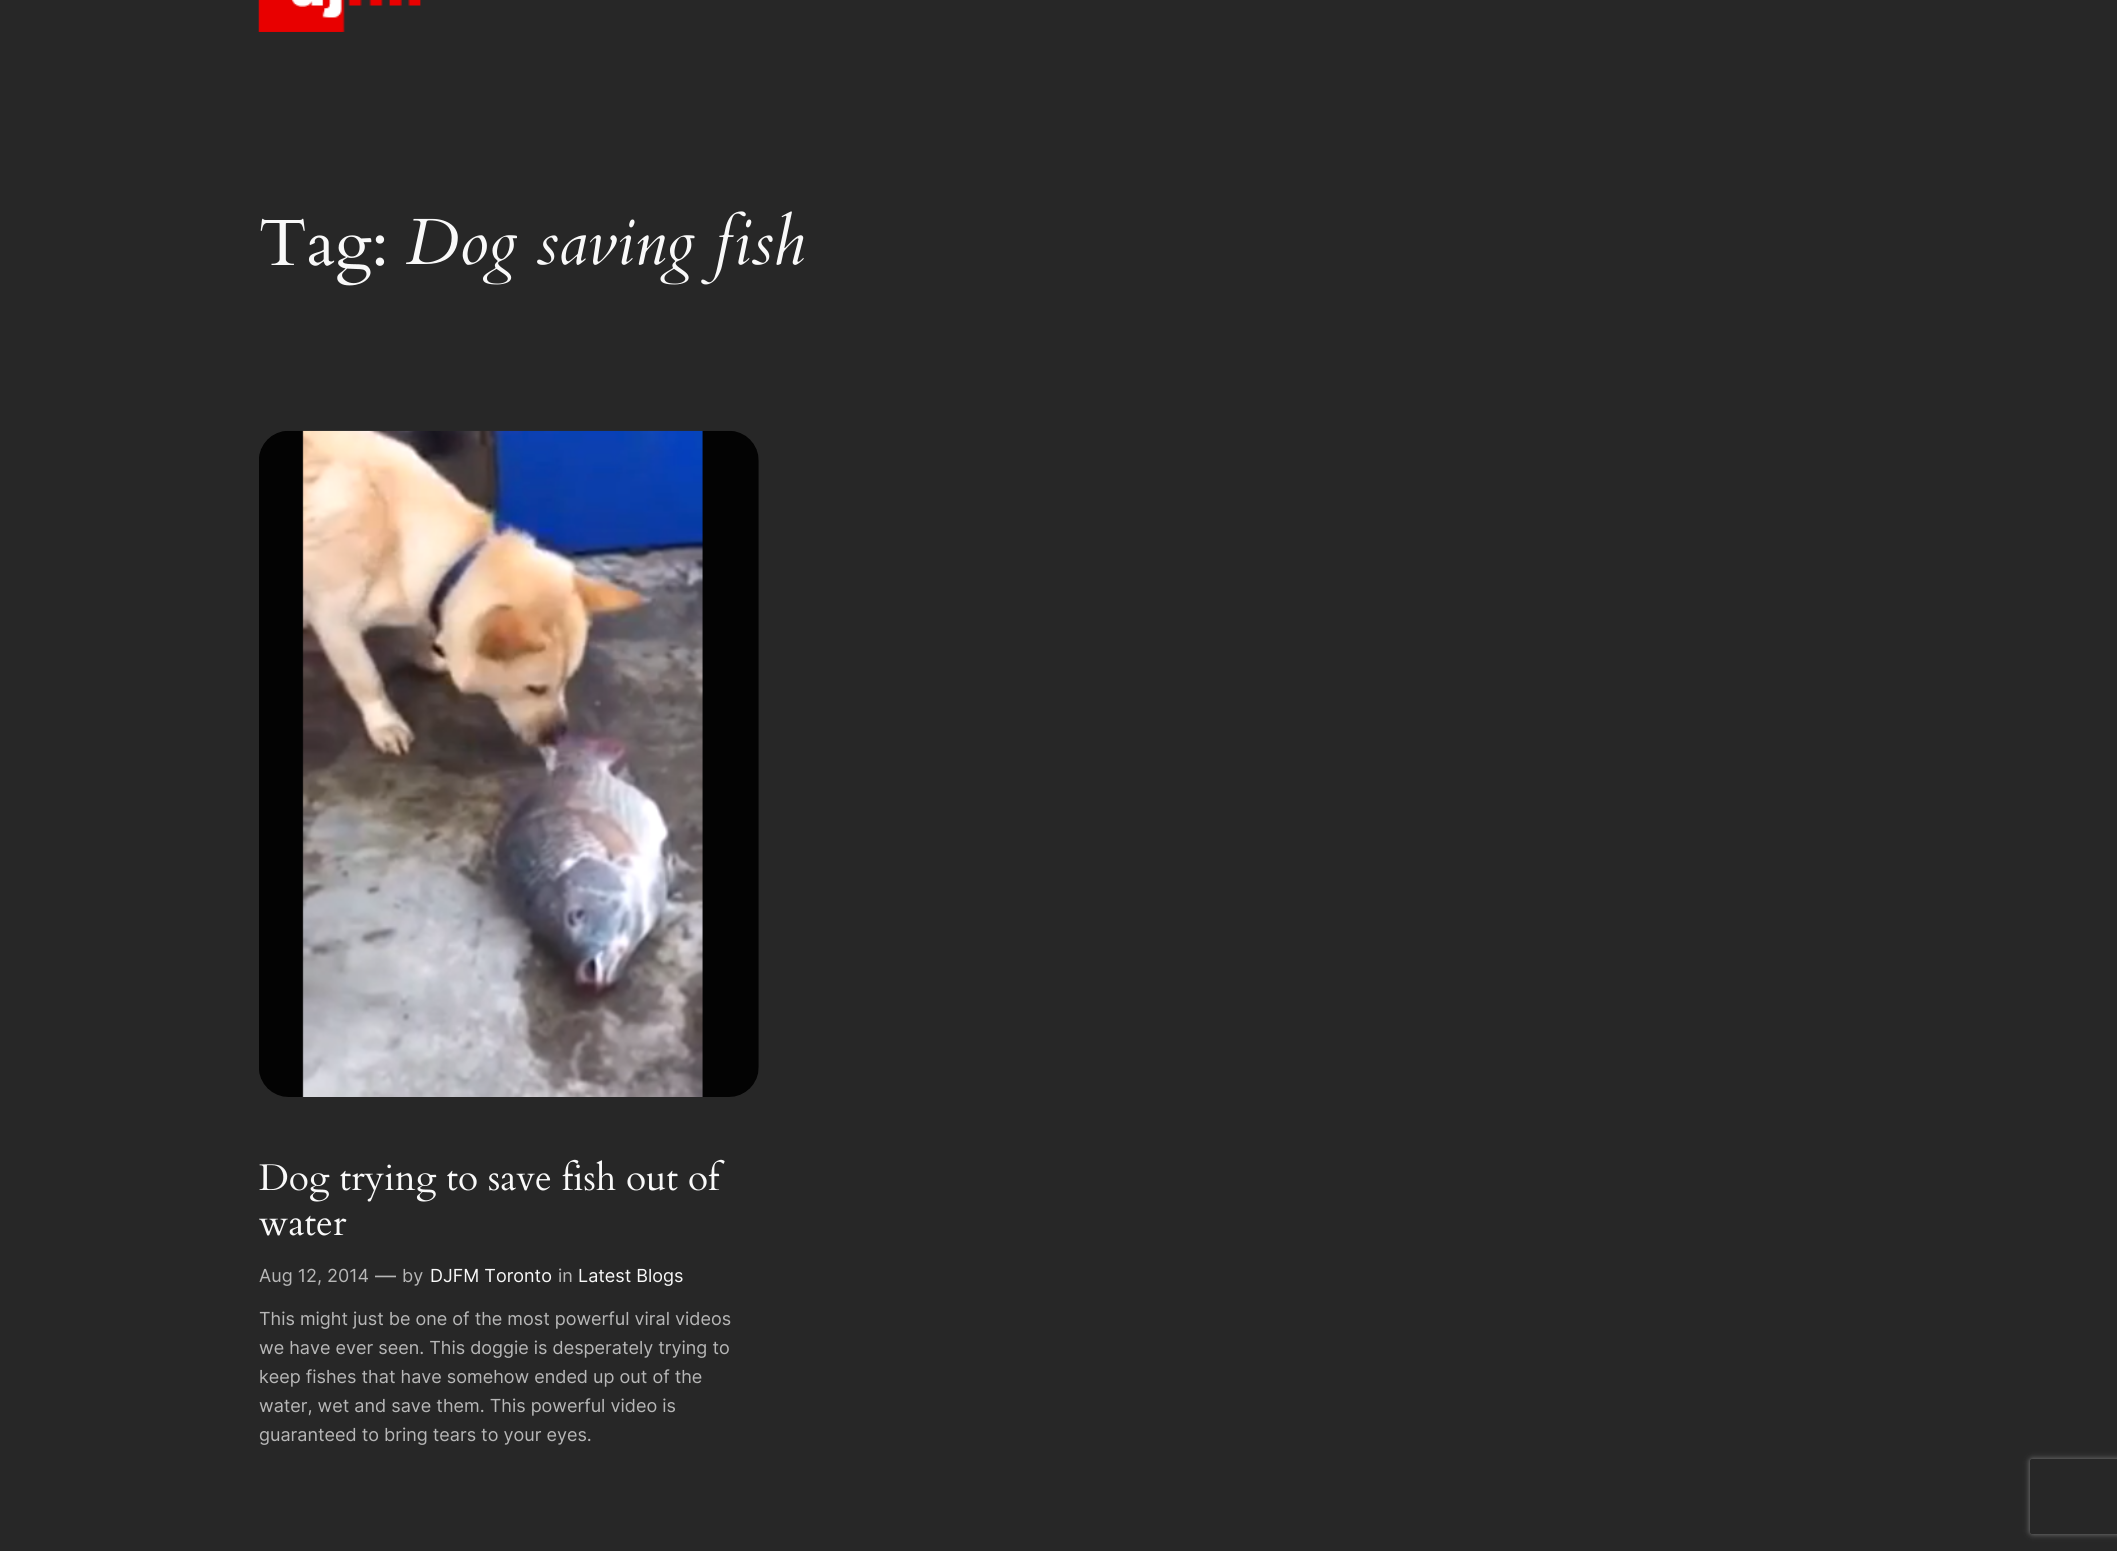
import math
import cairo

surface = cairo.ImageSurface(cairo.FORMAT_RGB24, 2117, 1551)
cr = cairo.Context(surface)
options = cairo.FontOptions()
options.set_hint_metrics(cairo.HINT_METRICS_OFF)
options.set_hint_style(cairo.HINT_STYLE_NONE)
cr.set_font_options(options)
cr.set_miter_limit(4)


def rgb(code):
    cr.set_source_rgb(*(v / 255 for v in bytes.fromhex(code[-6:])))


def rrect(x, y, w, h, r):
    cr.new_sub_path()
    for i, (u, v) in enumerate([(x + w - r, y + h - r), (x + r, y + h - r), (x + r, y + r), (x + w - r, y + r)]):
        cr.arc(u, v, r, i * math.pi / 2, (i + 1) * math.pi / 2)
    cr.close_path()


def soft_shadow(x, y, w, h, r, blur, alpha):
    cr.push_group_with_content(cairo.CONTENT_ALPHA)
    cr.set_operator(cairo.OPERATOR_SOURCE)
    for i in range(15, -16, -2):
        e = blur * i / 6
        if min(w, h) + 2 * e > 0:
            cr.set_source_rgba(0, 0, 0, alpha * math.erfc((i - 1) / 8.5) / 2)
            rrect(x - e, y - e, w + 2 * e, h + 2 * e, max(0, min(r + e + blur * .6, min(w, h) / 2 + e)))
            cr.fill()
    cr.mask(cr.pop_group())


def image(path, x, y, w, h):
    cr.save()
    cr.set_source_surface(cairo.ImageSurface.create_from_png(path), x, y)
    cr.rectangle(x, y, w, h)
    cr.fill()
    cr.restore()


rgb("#272727")
cr.paint()
image("img/1.png", 258, 0, 163, 32)
image("img/2.png", 260, 218, 125, 68)
image("img/3.png", 259, 430, 500, 667)
image("img/4.png", 259, 1159, 466, 43)
image("img/5.png", 259, 1215, 88, 21)
cr.save()
cr.set_fill_rule(cairo.FILL_RULE_EVEN_ODD)
cr.new_path()
cr.move_to(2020, 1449)
cr.line_to(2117, 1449)
cr.line_to(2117, 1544)
cr.line_to(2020, 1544)
cr.close_path()
cr.move_to(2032.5, 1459)
cr.line_to(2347.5, 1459)
cr.curve_to(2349, 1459, 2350, 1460, 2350, 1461.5)
cr.line_to(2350, 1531.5)
cr.curve_to(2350, 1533, 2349, 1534, 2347.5, 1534)
cr.line_to(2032.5, 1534)
cr.curve_to(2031, 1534, 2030, 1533, 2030, 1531.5)
cr.line_to(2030, 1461.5)
cr.curve_to(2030, 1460, 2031, 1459, 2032.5, 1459)
cr.close_path()
cr.clip()
rgb("#808080")
soft_shadow(2030, 1459, 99, 75, 2.5, 3, 1)
cr.restore()
cr.select_font_face("Cardo", cairo.FONT_SLANT_ITALIC)
cr.set_font_size(65.5)
rgb("#f9f9f9")
cr.move_to(406, 264)
cr.show_text("Dog saving fish")
cr.select_font_face("Inter")
cr.set_font_size(18)
rgb("#b7b7b7")
cr.move_to(259, 1282)
cr.show_text("Aug 12, 2014")
cr.set_font_size(21)
cr.move_to(375, 1283)
cr.show_text("—")
cr.set_font_size(18)
cr.move_to(402, 1282)
cr.show_text("by")
rgb("#f9f9f9")
cr.move_to(430, 1282)
cr.show_text("DJFM Toronto")
rgb("#b7b7b7")
cr.move_to(558, 1282)
cr.show_text("in")
rgb("#f9f9f9")
cr.move_to(578, 1282)
cr.show_text("Latest Blogs")
rgb("#b7b7b7")
for x, y, s in [
    (259, 1325, "This might just be one of the most powerful viral videos"),
    (259, 1354, "we have ever seen. This doggie is desperately trying to"),
    (259, 1383, "keep fishes that have somehow ended up out of the"),
    (259, 1412, "water, wet and save them. This powerful video is"),
    (259, 1441, "guaranteed to bring tears to your eyes."),
]:
    cr.move_to(x, y)
    cr.show_text(s)
surface.write_to_png("page.png")
